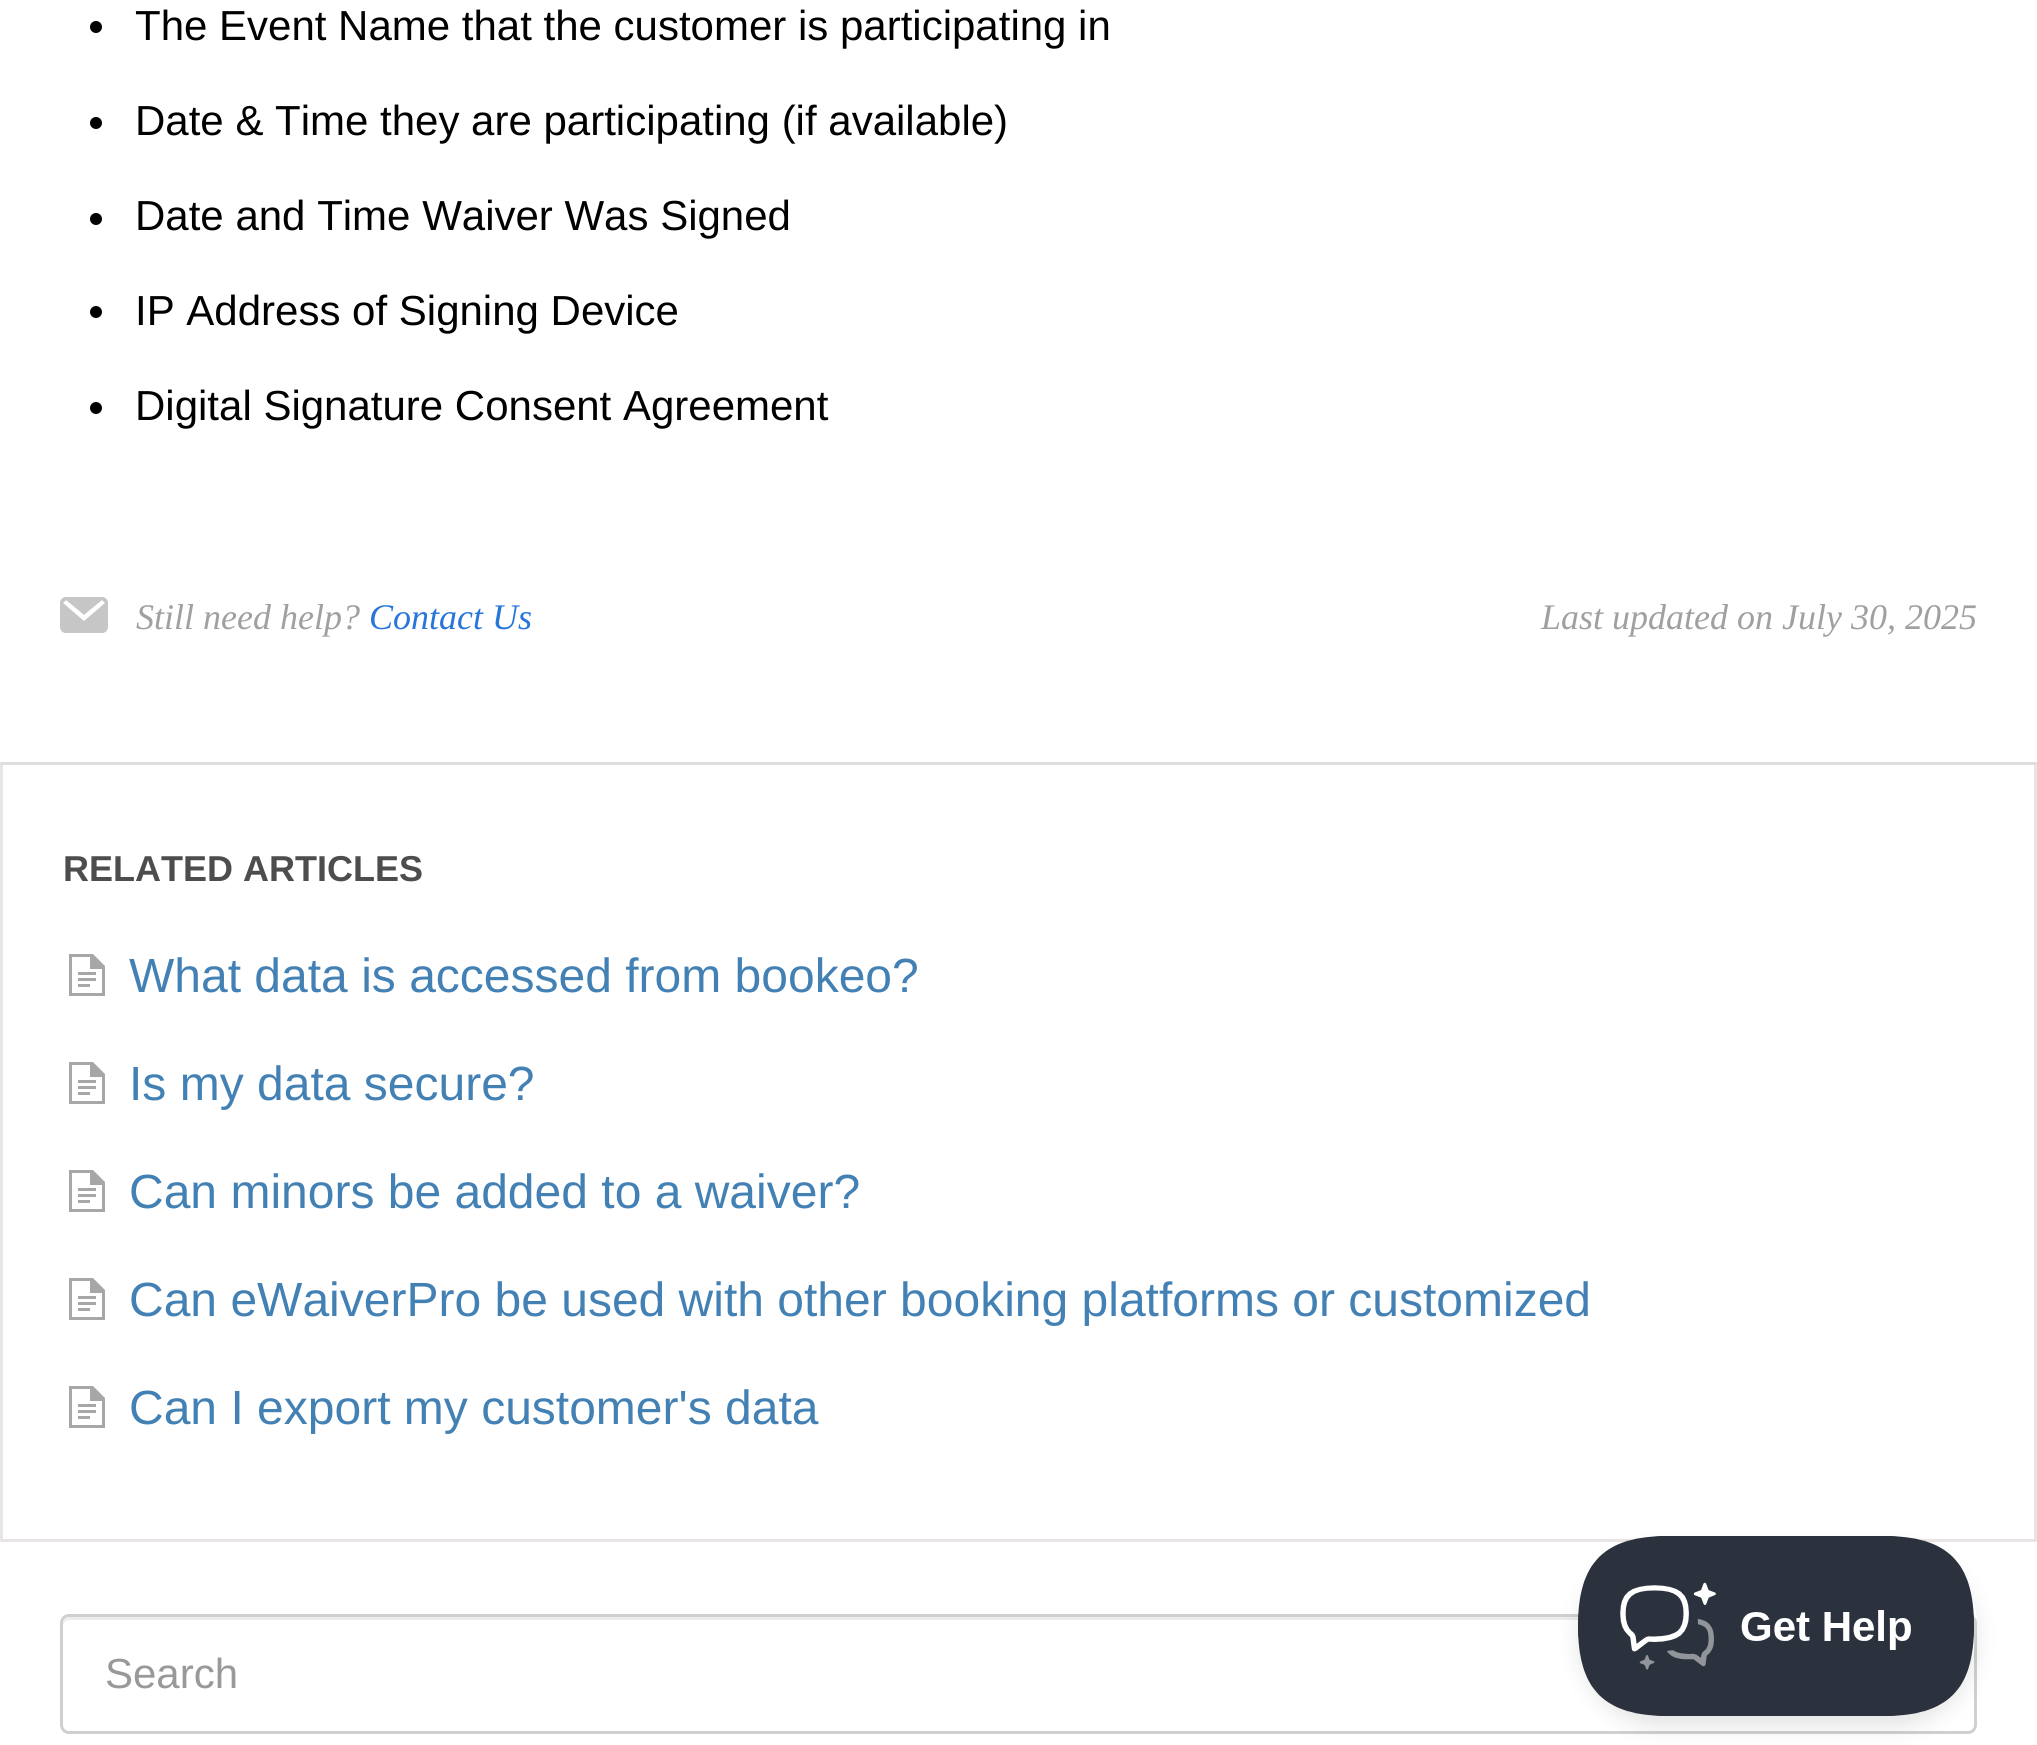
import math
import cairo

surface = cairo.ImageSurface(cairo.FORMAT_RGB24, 2037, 1745)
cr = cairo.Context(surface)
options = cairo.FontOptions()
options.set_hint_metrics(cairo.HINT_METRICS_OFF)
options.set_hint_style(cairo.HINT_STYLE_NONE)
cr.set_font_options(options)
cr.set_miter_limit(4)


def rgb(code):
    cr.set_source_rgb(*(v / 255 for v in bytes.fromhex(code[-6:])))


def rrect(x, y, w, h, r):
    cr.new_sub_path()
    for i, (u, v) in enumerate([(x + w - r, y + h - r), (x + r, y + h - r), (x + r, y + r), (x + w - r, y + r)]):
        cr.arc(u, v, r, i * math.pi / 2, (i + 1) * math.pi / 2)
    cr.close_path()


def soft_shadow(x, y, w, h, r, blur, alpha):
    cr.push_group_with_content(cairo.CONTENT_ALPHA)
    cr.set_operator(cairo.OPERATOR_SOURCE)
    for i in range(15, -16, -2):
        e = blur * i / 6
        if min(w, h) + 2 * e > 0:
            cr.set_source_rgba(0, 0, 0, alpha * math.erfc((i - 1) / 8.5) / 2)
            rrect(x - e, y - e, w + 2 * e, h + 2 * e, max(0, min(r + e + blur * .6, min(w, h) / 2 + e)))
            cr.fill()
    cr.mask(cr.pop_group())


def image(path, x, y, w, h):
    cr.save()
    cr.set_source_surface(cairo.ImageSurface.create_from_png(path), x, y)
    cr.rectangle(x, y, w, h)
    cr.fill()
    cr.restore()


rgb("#ffffff")
cr.paint()
rgb("#dedede")
cr.rectangle(0, 762, 2037, 3)
cr.fill()
rgb("#000000")
cr.arc(96, 27, 6, 0, 2 * math.pi)
cr.fill()
cr.arc(96, 123, 6, 0, 2 * math.pi)
cr.fill()
cr.arc(96, 219, 6, 0, 2 * math.pi)
cr.fill()
cr.arc(96, 312, 6, 0, 2 * math.pi)
cr.fill()
cr.arc(96, 408, 6, 0, 2 * math.pi)
cr.fill()
image("img/1.png", 60, 597, 48, 36)
for x, y, w, h, color in [
    (2034, 765, 3, 777, "#e9e5e5"),
    (0, 1539, 2037, 3, "#e9e5e5"),
    (0, 765, 3, 777, "#e9e5e5"),
]:
    rgb(color)
    cr.rectangle(x, y, w, h)
    cr.fill()
image("img/2.png", 69, 954, 36, 42)
image("img/2.png", 69, 1062, 36, 42)
image("img/2.png", 69, 1170, 36, 42)
image("img/2.png", 69, 1278, 36, 42)
image("img/2.png", 69, 1386, 36, 42)
rgb("#ececec")
cr.new_path()
cr.move_to(69, 1620)
cr.line_to(1968, 1620)
cr.curve_to(1971, 1620, 1974, 1623, 1974, 1626)
cr.curve_to(1974, 1622, 1973, 1617, 1968, 1617)
cr.line_to(69, 1617)
cr.curve_to(64, 1617, 63, 1622, 63, 1626)
cr.curve_to(63, 1623, 66, 1620, 69, 1620)
cr.close_path()
cr.fill()
rrect(61.5, 1615.5, 1914, 117, 7.5)
rgb("#d0d0d0")
cr.set_line_width(3)
cr.stroke()
cr.save()
cr.set_fill_rule(cairo.FILL_RULE_EVEN_ODD)
cr.new_path()
cr.move_to(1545, 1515)
cr.line_to(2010, 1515)
cr.line_to(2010, 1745)
cr.line_to(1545, 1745)
cr.close_path()
cr.move_to(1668, 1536)
cr.line_to(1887, 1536)
cr.curve_to(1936.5, 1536, 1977, 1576.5, 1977, 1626)
cr.curve_to(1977, 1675.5, 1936.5, 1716, 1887, 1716)
cr.line_to(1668, 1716)
cr.curve_to(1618.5, 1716, 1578, 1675.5, 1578, 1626)
cr.curve_to(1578, 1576.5, 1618.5, 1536, 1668, 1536)
cr.close_path()
cr.clip()
rgb("#000000")
soft_shadow(1578, 1548, 399, 180, 90, 10.5, 0.1)
cr.restore()
image("img/3.png", 1578, 1536, 396, 180)
cr.select_font_face("Liberation Sans")
cr.set_font_size(42)
rgb("#000000")
for x, y, s in [
    (135, 40, "The Event Name that the customer is participating in"),
    (135, 135, "Date & Time they are participating (if available)"),
    (135, 230, "Date and Time Waiver Was Signed"),
    (135, 325, "IP Address of Signing Device"),
    (135, 420, "Digital Signature Consent Agreement"),
]:
    cr.move_to(x, y)
    cr.show_text(s)
cr.select_font_face("Liberation Serif", cairo.FONT_SLANT_ITALIC)
cr.set_font_size(36)
rgb("#a0a0a0")
cr.move_to(136, 629)
cr.show_text("Still need help?")
rgb("#2876da")
cr.move_to(369, 629)
cr.show_text("Contact Us")
rgb("#a0a0a0")
cr.move_to(1541, 629)
cr.show_text("Last updated on July 30, 2025")
cr.select_font_face("Liberation Sans", cairo.FONT_SLANT_NORMAL, cairo.FONT_WEIGHT_BOLD)
rgb("#4d4d4d")
cr.move_to(63, 881)
cr.show_text("RELATED ARTICLES")
cr.select_font_face("Liberation Sans")
cr.set_font_size(48)
rgb("#4381b5")
for x, y, s in [
    (129, 992, "What data is accessed from bookeo?"),
    (129, 1100, "Is my data secure?"),
    (129, 1208, "Can minors be added to a waiver?"),
    (129, 1316, "Can eWaiverPro be used with other booking platforms or customized"),
    (129, 1424, "Can I export my customer's data"),
]:
    cr.move_to(x, y)
    cr.show_text(s)
cr.set_font_size(42)
rgb("#999999")
cr.move_to(105, 1688)
cr.show_text("Search")
surface.write_to_png("page.png")
